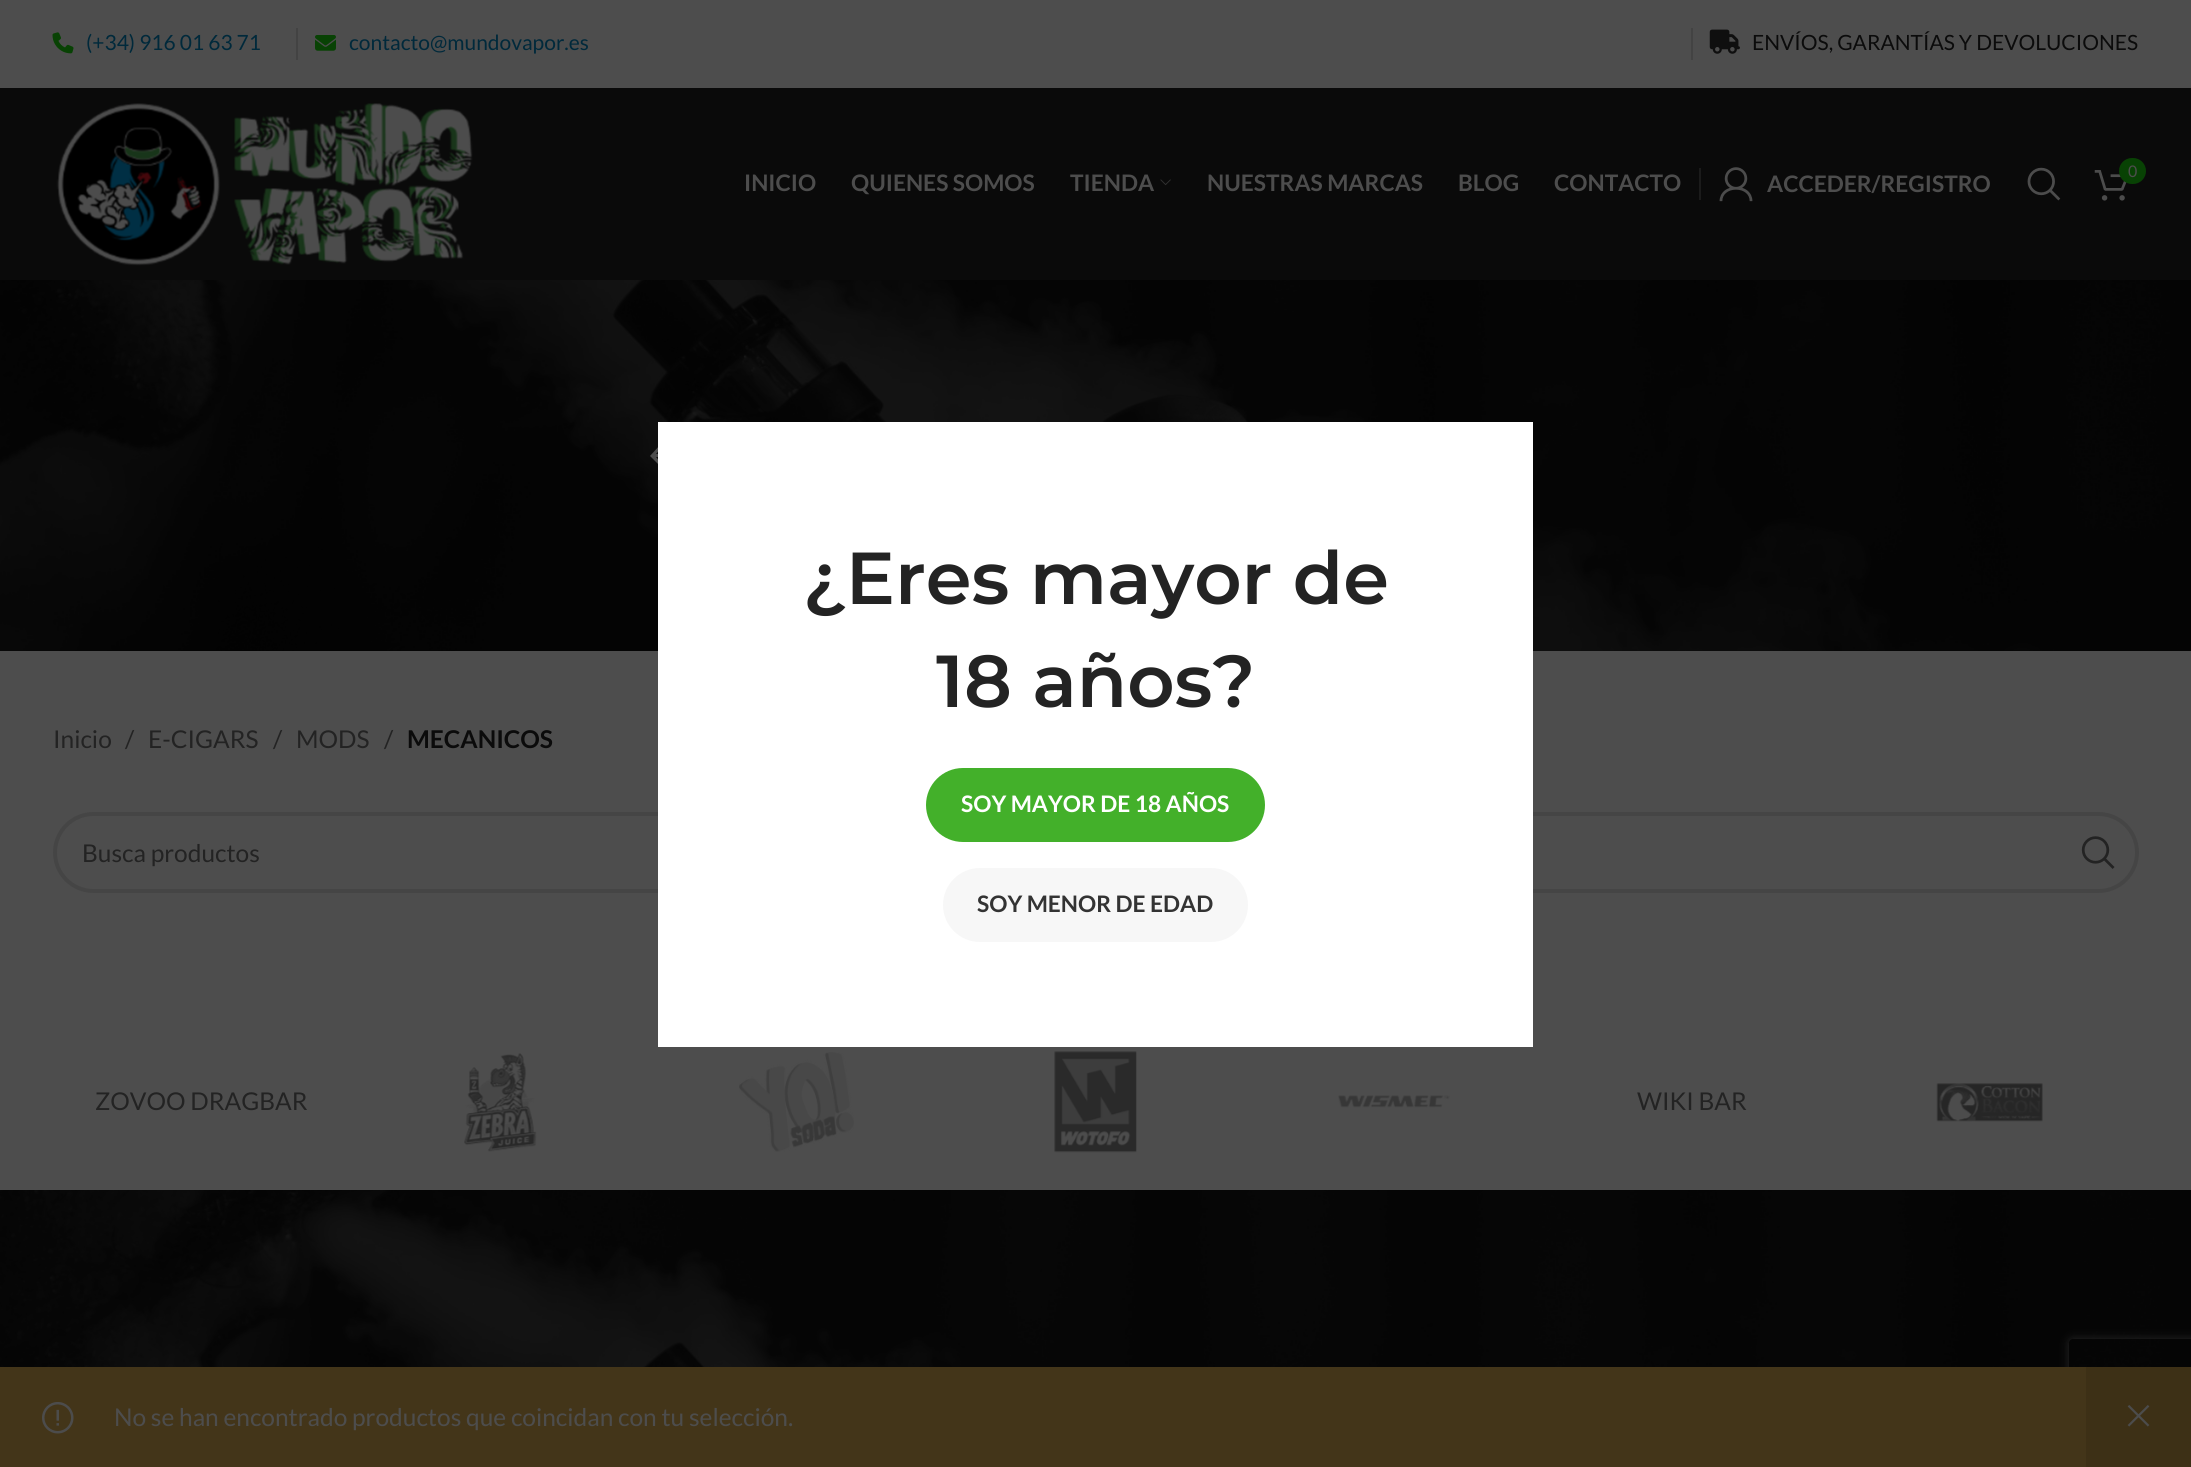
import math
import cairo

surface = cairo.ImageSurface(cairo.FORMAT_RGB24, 2191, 1467)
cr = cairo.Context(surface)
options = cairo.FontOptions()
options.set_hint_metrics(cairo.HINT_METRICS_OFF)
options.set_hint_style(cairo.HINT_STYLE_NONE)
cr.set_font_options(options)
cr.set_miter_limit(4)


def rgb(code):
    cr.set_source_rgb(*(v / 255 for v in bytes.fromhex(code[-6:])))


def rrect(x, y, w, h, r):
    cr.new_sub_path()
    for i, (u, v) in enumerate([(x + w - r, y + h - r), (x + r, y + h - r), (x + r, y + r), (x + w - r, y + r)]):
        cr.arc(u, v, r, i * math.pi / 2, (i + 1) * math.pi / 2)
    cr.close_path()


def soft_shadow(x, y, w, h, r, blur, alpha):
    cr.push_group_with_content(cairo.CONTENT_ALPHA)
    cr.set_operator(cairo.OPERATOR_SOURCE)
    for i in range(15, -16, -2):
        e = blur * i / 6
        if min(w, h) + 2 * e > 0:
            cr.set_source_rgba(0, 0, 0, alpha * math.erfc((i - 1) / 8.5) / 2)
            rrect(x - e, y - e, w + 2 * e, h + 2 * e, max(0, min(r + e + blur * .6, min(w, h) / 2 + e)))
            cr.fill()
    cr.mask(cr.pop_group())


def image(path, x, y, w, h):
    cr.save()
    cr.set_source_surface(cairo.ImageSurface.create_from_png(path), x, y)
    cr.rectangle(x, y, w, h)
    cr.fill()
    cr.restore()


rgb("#4d4d4d")
cr.paint()
image("img/1.png", 52, 32, 22, 22)
rgb("#434343")
cr.rectangle(296, 28, 2, 32)
cr.fill()
image("img/2.png", 315, 35, 21, 16)
cr.rectangle(1691, 28, 2, 32)
cr.fill()
image("img/3.png", 1709, 29, 31, 25)
rgb("#0a0a0a")
cr.rectangle(0, 88, 2191, 192)
cr.fill()
image("img/4.png", 56, 103, 417, 163)
image("img/5.png", 1160, 179, 11, 7)
rgb("#1b1b1b")
cr.rectangle(1699, 168, 2, 32)
cr.fill()
image("img/6.png", 1719, 167, 34, 35)
image("img/7.png", 2027, 167, 34, 34)
image("img/8.png", 2094, 170, 33, 31)
rgb("#084204")
rrect(2119, 158, 27, 26, 13)
cr.fill()
rgb("#030303")
cr.rectangle(0, 280, 2191, 371)
cr.fill()
image("img/9.png", 0, 280, 2191, 371)
rgb("#4d4d4d")
cr.new_path()
cr.move_to(662, 464)
cr.line_to(656, 457)
cr.line_to(691, 457)
cr.line_to(691, 454)
cr.line_to(656, 454)
cr.line_to(662, 447)
cr.line_to(660, 445)
cr.line_to(650, 456)
cr.line_to(660, 466)
cr.close_path()
cr.fill()
rrect(55, 814, 2082, 77, 38.5)
rgb("#454545")
cr.set_line_width(4)
cr.stroke()
image("img/10.png", 2081, 836, 34, 33)
rgb("#040404")
cr.rectangle(0, 1190, 2191, 177)
cr.fill()
image("img/18.png", 0, 1190, 2191, 177)
cr.save()
cr.set_fill_rule(cairo.FILL_RULE_EVEN_ODD)
cr.new_path()
cr.move_to(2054, 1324)
cr.line_to(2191, 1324)
cr.line_to(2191, 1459)
cr.line_to(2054, 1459)
cr.close_path()
cr.move_to(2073, 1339)
cr.line_to(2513, 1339)
cr.curve_to(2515, 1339, 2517, 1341, 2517, 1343)
cr.line_to(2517, 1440)
cr.curve_to(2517, 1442, 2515, 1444, 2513, 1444)
cr.line_to(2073, 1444)
cr.curve_to(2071, 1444, 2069, 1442, 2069, 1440)
cr.line_to(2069, 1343)
cr.curve_to(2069, 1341, 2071, 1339, 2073, 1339)
cr.close_path()
cr.clip()
rgb("#262626")
soft_shadow(2069, 1339, 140, 105, 4, 4.5, 1)
cr.restore()
rgb("#433519")
cr.rectangle(0, 1367, 2086, 100)
cr.fill()
image("img/11.png", 42, 1402, 32, 32)
rgb("#3d3016")
cr.rectangle(2086, 1367, 105, 100)
cr.fill()
image("img/12.png", 2127, 1405, 23, 22)
image("img/13.png", 464, 1053, 73, 99)
image("img/14.png", 739, 1052, 115, 100)
image("img/15.png", 1054, 1051, 83, 102)
image("img/16.png", 1338, 1095, 112, 13)
image("img/17.png", 1936, 1083, 107, 39)
rgb("#ffffff")
cr.rectangle(658, 422, 875, 625)
cr.fill()
rgb("#43b02a")
rrect(926, 768, 339, 74, 37)
cr.fill()
rgb("#f7f7f7")
rrect(943, 868, 305, 74, 37)
cr.fill()
cr.select_font_face("Lato")
cr.set_font_size(21)
rgb("#00293b")
cr.move_to(86, 50)
cr.show_text("(+34) 916 01 63 71")
cr.move_to(349, 50)
cr.show_text("contacto@mundovapor.es")
rgb("#0b0b0b")
cr.move_to(1752, 50)
cr.show_text("ENVÍOS, GARANTÍAS Y DEVOLUCIONES")
cr.select_font_face("Lato", cairo.FONT_SLANT_NORMAL, cairo.FONT_WEIGHT_BOLD)
cr.set_font_size(22.75)
rgb("#4d4d4d")
for x, y, s in [
    (744, 191, "INICIO"),
    (851, 191, "QUIENES SOMOS"),
    (1070, 191, "TIENDA"),
    (1207, 191, "NUESTRAS MARCAS"),
    (1458, 191, "BLOG"),
    (1554, 191, "CONTACTO"),
    (1767, 192, "ACCEDER/REGISTRO"),
]:
    cr.move_to(x, y)
    cr.show_text(s)
cr.select_font_face("Lato")
cr.set_font_size(16)
cr.move_to(2128, 177)
cr.show_text("0")
cr.set_font_size(24.5)
rgb("#232323")
for x, y, s in [
    (53, 748, "Inicio"),
    (125, 748, "/"),
    (148, 748, "E-CIGARS"),
    (273, 748, "/"),
    (296, 748, "MODS"),
    (384, 748, "/"),
]:
    cr.move_to(x, y)
    cr.show_text(s)
cr.select_font_face("Lato", cairo.FONT_SLANT_NORMAL, cairo.FONT_WEIGHT_BOLD)
rgb("#0b0b0b")
cr.move_to(407, 748)
cr.show_text("MECANICOS")
cr.select_font_face("Lato")
rgb("#232323")
cr.move_to(82, 862)
cr.show_text("Busca productos")
rgb("#4d4d4d")
cr.move_to(114, 1426)
cr.show_text("No se han encontrado productos que coincidan con tu selección.")
rgb("#232323")
cr.move_to(95, 1110)
cr.show_text("ZOVOO DRAGBAR")
cr.move_to(1637, 1110)
cr.show_text("WIKI BAR")
cr.select_font_face("Montserrat SemiBold")
cr.set_font_size(73.5)
cr.move_to(803, 604)
cr.show_text("¿Eres mayor de")
cr.move_to(936, 707)
cr.show_text("18 años?")
cr.select_font_face("Lato", cairo.FONT_SLANT_NORMAL, cairo.FONT_WEIGHT_BOLD)
cr.set_font_size(22.75)
rgb("#ffffff")
cr.move_to(961, 812)
cr.show_text("SOY MAYOR DE 18 AÑOS")
rgb("#333333")
cr.move_to(977, 912)
cr.show_text("SOY MENOR DE EDAD")
surface.write_to_png("page.png")
